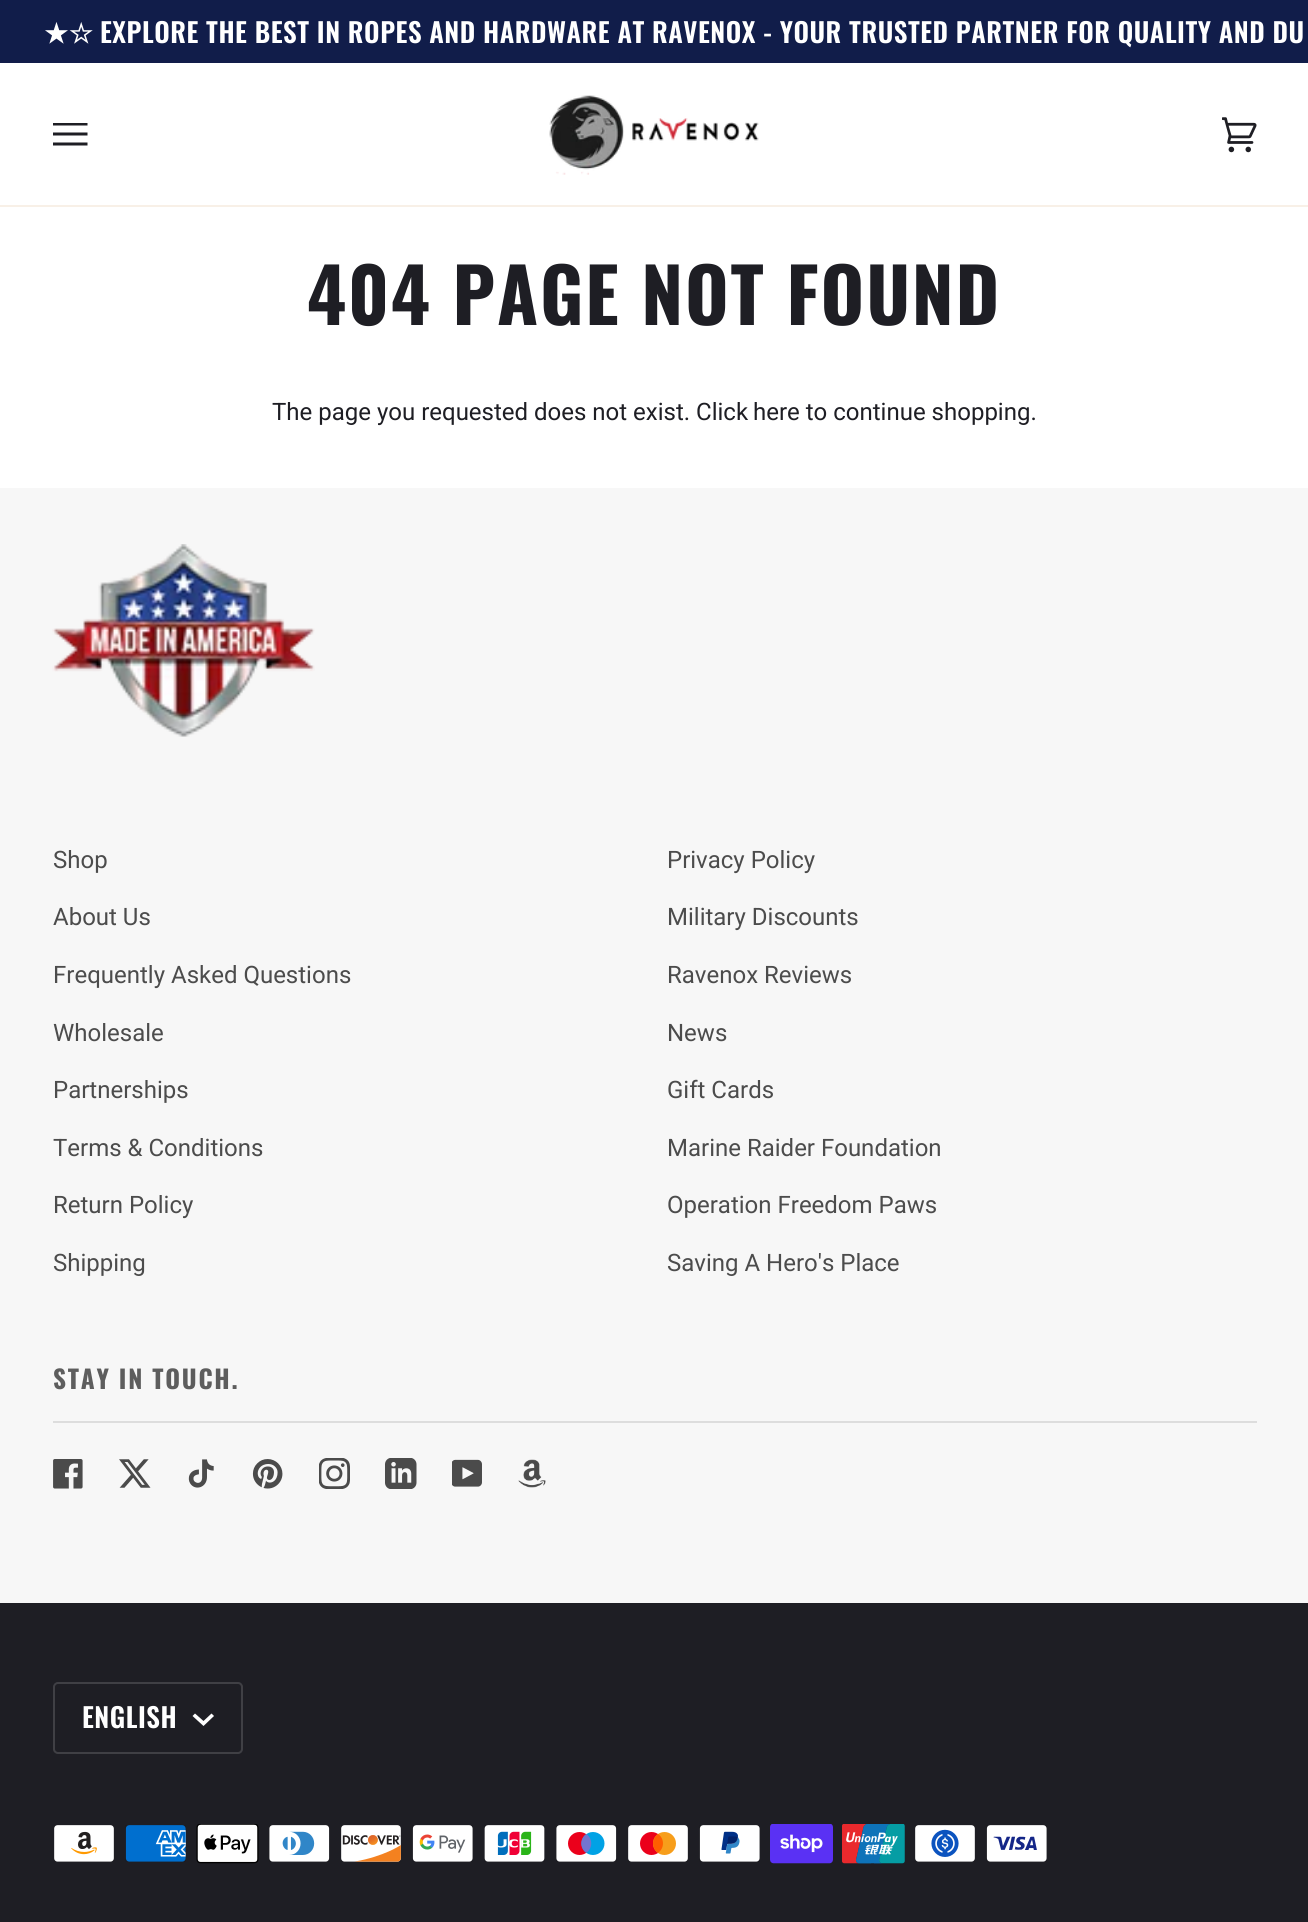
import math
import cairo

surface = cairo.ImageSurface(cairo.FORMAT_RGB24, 1308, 1922)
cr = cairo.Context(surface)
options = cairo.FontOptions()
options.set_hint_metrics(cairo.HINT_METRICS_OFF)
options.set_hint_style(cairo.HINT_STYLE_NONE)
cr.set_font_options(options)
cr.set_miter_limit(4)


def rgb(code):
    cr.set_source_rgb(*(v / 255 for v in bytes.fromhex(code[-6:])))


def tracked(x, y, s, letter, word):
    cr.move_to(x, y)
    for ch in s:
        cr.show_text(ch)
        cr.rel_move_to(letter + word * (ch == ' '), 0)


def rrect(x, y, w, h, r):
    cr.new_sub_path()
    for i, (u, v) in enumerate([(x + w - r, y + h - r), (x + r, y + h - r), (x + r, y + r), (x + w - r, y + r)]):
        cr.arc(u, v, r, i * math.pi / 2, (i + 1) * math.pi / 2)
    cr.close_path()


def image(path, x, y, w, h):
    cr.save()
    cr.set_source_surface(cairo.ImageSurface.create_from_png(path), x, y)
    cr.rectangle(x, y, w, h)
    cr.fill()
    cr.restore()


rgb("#ffffff")
cr.paint()
rgb("#111d4a")
cr.rectangle(0, 0, 1308, 63)
cr.fill()
rgb("#f8f0e7")
cr.rectangle(0, 205, 1308, 2)
cr.fill()
cr.save()
cr.rectangle(53, 109, 35, 52)
cr.clip()
rgb("#1e1e24")
cr.new_path()
cr.move_to(52.5, 123)
cr.line_to(87.5, 123)
cr.line_to(87.5, 125.5)
cr.line_to(52.5, 125.5)
cr.close_path()
cr.move_to(52.5, 132.5)
cr.line_to(87.5, 132.5)
cr.line_to(87.5, 135.5)
cr.line_to(52.5, 135.5)
cr.close_path()
cr.move_to(52.5, 142.5)
cr.line_to(87.5, 142.5)
cr.line_to(87.5, 145.5)
cr.line_to(52.5, 145.5)
cr.close_path()
cr.fill()
cr.restore()
image("img/1.png", 549, 95, 210, 80)
image("img/2.png", 1222, 117, 35, 36)
rgb("#f7f7f7")
cr.rectangle(0, 488, 1308, 1115)
cr.fill()
image("img/3.png", 52, 544, 263, 193)
rgb("#dddddd")
cr.rectangle(53, 1421, 1204, 2)
cr.fill()
image("img/4.png", 53, 1459, 30, 30)
image("img/5.png", 119, 1459, 32, 29)
image("img/6.png", 188, 1459, 26, 29)
image("img/7.png", 252, 1459, 31, 30)
image("img/8.png", 319, 1458, 31, 31)
image("img/9.png", 385, 1458, 32, 31)
image("img/10.png", 452, 1459, 30, 28)
image("img/11.png", 518, 1459, 28, 29)
rgb("#1e1e24")
cr.rectangle(0, 1603, 1308, 319)
cr.fill()
rrect(54, 1683, 188, 70, 4)
rgb("#404045")
cr.stroke()
rgb("#ffffff")
cr.set_fill_rule(cairo.FILL_RULE_EVEN_ODD)
cr.new_path()
cr.move_to(192.5, 1716)
cr.line_to(195, 1713.5)
cr.line_to(203.5, 1721)
cr.line_to(211.5, 1713.5)
cr.line_to(214, 1716)
cr.line_to(203.5, 1726)
cr.close_path()
cr.fill()
image("img/12.png", 54, 1825, 60, 37)
image("img/13.png", 125, 1825, 61, 37)
image("img/14.png", 196, 1824, 63, 40)
image("img/15.png", 269, 1825, 61, 37)
image("img/16.png", 341, 1825, 60, 37)
image("img/17.png", 412, 1825, 61, 37)
image("img/18.png", 484, 1825, 61, 37)
image("img/19.png", 556, 1825, 61, 37)
image("img/20.png", 628, 1825, 60, 37)
image("img/21.png", 699, 1825, 61, 37)
image("img/22.png", 770, 1824, 63, 40)
image("img/23.png", 842, 1824, 63, 40)
image("img/24.png", 915, 1825, 60, 37)
image("img/25.png", 986, 1825, 61, 37)
cr.select_font_face("DejaVu Sans", cairo.FONT_SLANT_NORMAL, cairo.FONT_WEIGHT_BOLD)
cr.set_font_size(26.95)
tracked(44, 43, "★☆", 0.53, 0)
cr.select_font_face("Oswald SemiBold")
tracked(100, 43, "EXPLORE THE BEST IN ROPES AND HARDWARE AT RAVENOX - YOUR TRUSTED PARTNER FOR QUALITY AND DU", 0.53, 0)
cr.select_font_face("Oswald", cairo.FONT_SLANT_NORMAL, cairo.FONT_WEIGHT_BOLD)
cr.set_font_size(74.75)
rgb("#1e1e24")
tracked(307, 325, "404 PAGE NOT FOUND", 1.75, 0)
cr.select_font_face("Roboto")
cr.set_font_size(24)
cr.move_to(272, 420)
cr.show_text("The page you requested does not exist. Click")
cr.move_to(753, 420)
cr.show_text("here to continue shopping.")
rgb("#4c4c4c")
for x, y, s in [
    (53, 868, "Shop"),
    (53, 925, "About Us"),
    (53, 983, "Frequently Asked Questions"),
    (53, 1041, "Wholesale"),
    (53, 1098, "Partnerships"),
    (53, 1156, "Terms & Conditions"),
    (53, 1213, "Return Policy"),
    (53, 1271, "Shipping"),
    (667, 868, "Privacy Policy"),
    (667, 925, "Military Discounts"),
    (667, 983, "Ravenox Reviews"),
    (667, 1041, "News"),
    (667, 1098, "Gift Cards"),
    (667, 1156, "Marine Raider Foundation"),
    (667, 1213, "Operation Freedom Paws"),
    (667, 1271, "Saving A Hero's Place"),
]:
    cr.move_to(x, y)
    cr.show_text(s)
cr.select_font_face("Oswald", cairo.FONT_SLANT_NORMAL, cairo.FONT_WEIGHT_BOLD)
cr.set_font_size(25.25)
rgb("#5d5d5d")
tracked(53, 1389, "STAY IN TOUCH.", 1.75, 0)
cr.select_font_face("Oswald SemiBold")
cr.set_font_size(26.95)
rgb("#ffffff")
tracked(82, 1728, "ENGLISH", 0.53, 0)
surface.write_to_png("page.png")
